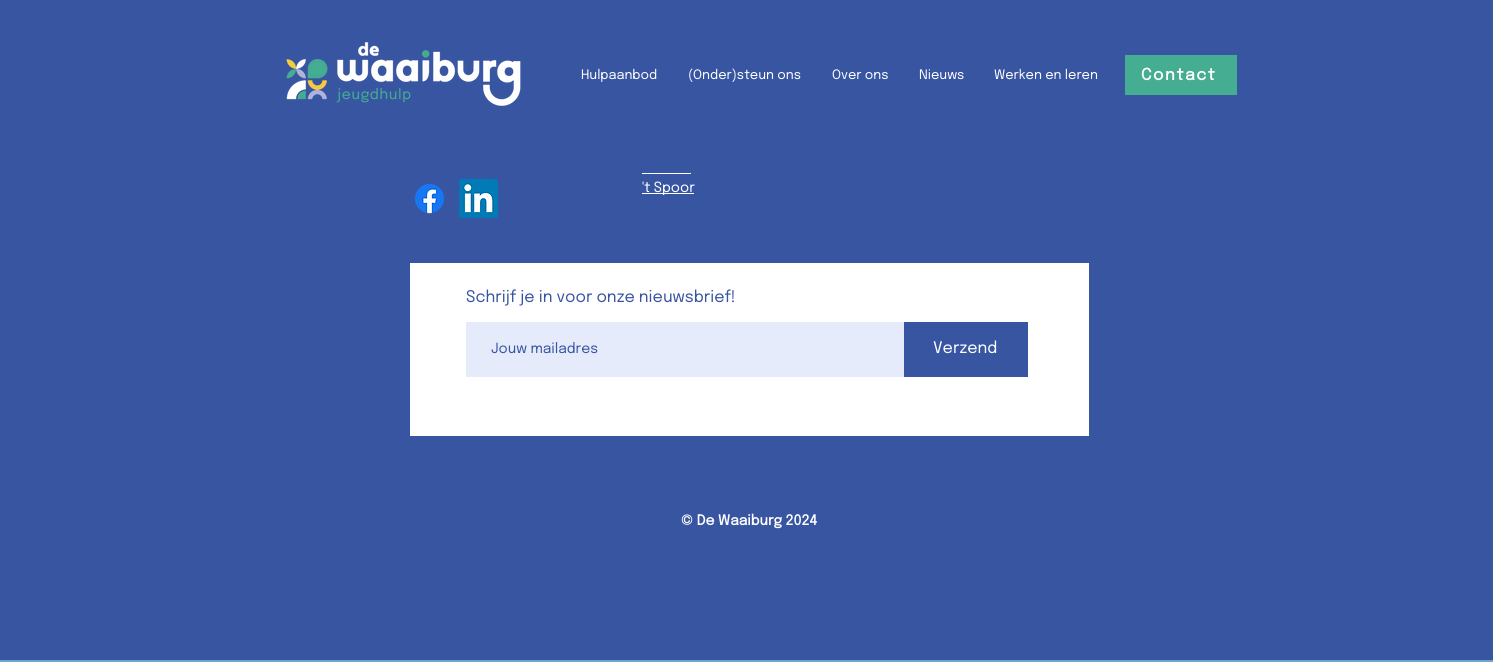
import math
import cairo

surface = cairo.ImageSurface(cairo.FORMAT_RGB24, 1493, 662)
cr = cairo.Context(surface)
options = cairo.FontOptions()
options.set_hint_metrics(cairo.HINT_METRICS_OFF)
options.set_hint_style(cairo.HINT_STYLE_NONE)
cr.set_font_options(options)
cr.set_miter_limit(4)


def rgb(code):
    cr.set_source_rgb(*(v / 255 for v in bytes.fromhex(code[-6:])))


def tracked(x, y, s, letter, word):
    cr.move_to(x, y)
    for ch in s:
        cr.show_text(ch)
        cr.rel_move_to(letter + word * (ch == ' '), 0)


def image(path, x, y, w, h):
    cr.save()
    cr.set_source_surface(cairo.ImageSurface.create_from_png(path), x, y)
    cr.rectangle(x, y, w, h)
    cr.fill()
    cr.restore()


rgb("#3855a2")
cr.paint()
image("img/1.png", 286, 42, 235, 64)
rgb("#45ad92")
cr.rectangle(1125, 55, 112, 40)
cr.fill()
image("img/2.png", 414, 183, 31, 31)
image("img/3.png", 459, 179, 39, 39)
for x, y, w, h, color in [
    (642, 173, 49, 1, "#ffffff"),
    (642, 193, 52, 1, "#ffffff"),
    (410, 263, 679, 173, "#ffffff"),
    (466, 322, 438, 55, "#e5ebfa"),
    (904, 322, 124, 55, "#3855a2"),
    (0, 660, 1493, 2, "#6ea4ca"),
]:
    rgb(color)
    cr.rectangle(x, y, w, h)
    cr.fill()
cr.select_font_face("Epilogue")
cr.set_font_size(13)
rgb("#ffffff")
for x, y, s in [
    (581, 79, "Hulpaanbod"),
    (688, 79, "(Onder)steun ons"),
    (832, 79, "Over ons"),
    (919, 79, "Nieuws"),
    (994, 79, "Werken en leren"),
]:
    cr.move_to(x, y)
    cr.show_text(s)
cr.select_font_face("Epilogue", cairo.FONT_SLANT_NORMAL, cairo.FONT_WEIGHT_BOLD)
cr.set_font_size(16)
tracked(1141, 80, "Contact", 1.5, 0)
cr.select_font_face("Epilogue")
cr.set_font_size(14)
cr.move_to(642, 192)
cr.show_text("'t Spoor")
cr.set_font_size(16)
rgb("#3855a2")
cr.move_to(466, 302)
cr.show_text("Schrijf je in voor onze nieuwsbrief!")
cr.set_font_size(14)
cr.move_to(491, 353)
cr.show_text("Jouw mailadres")
cr.set_font_size(16)
rgb("#ffffff")
cr.move_to(933, 353)
cr.show_text("Verzend")
cr.select_font_face("Epilogue", cairo.FONT_SLANT_NORMAL, cairo.FONT_WEIGHT_BOLD)
cr.set_font_size(14)
cr.move_to(681, 525)
cr.show_text("© De Waaiburg 2024")
surface.write_to_png("page.png")
